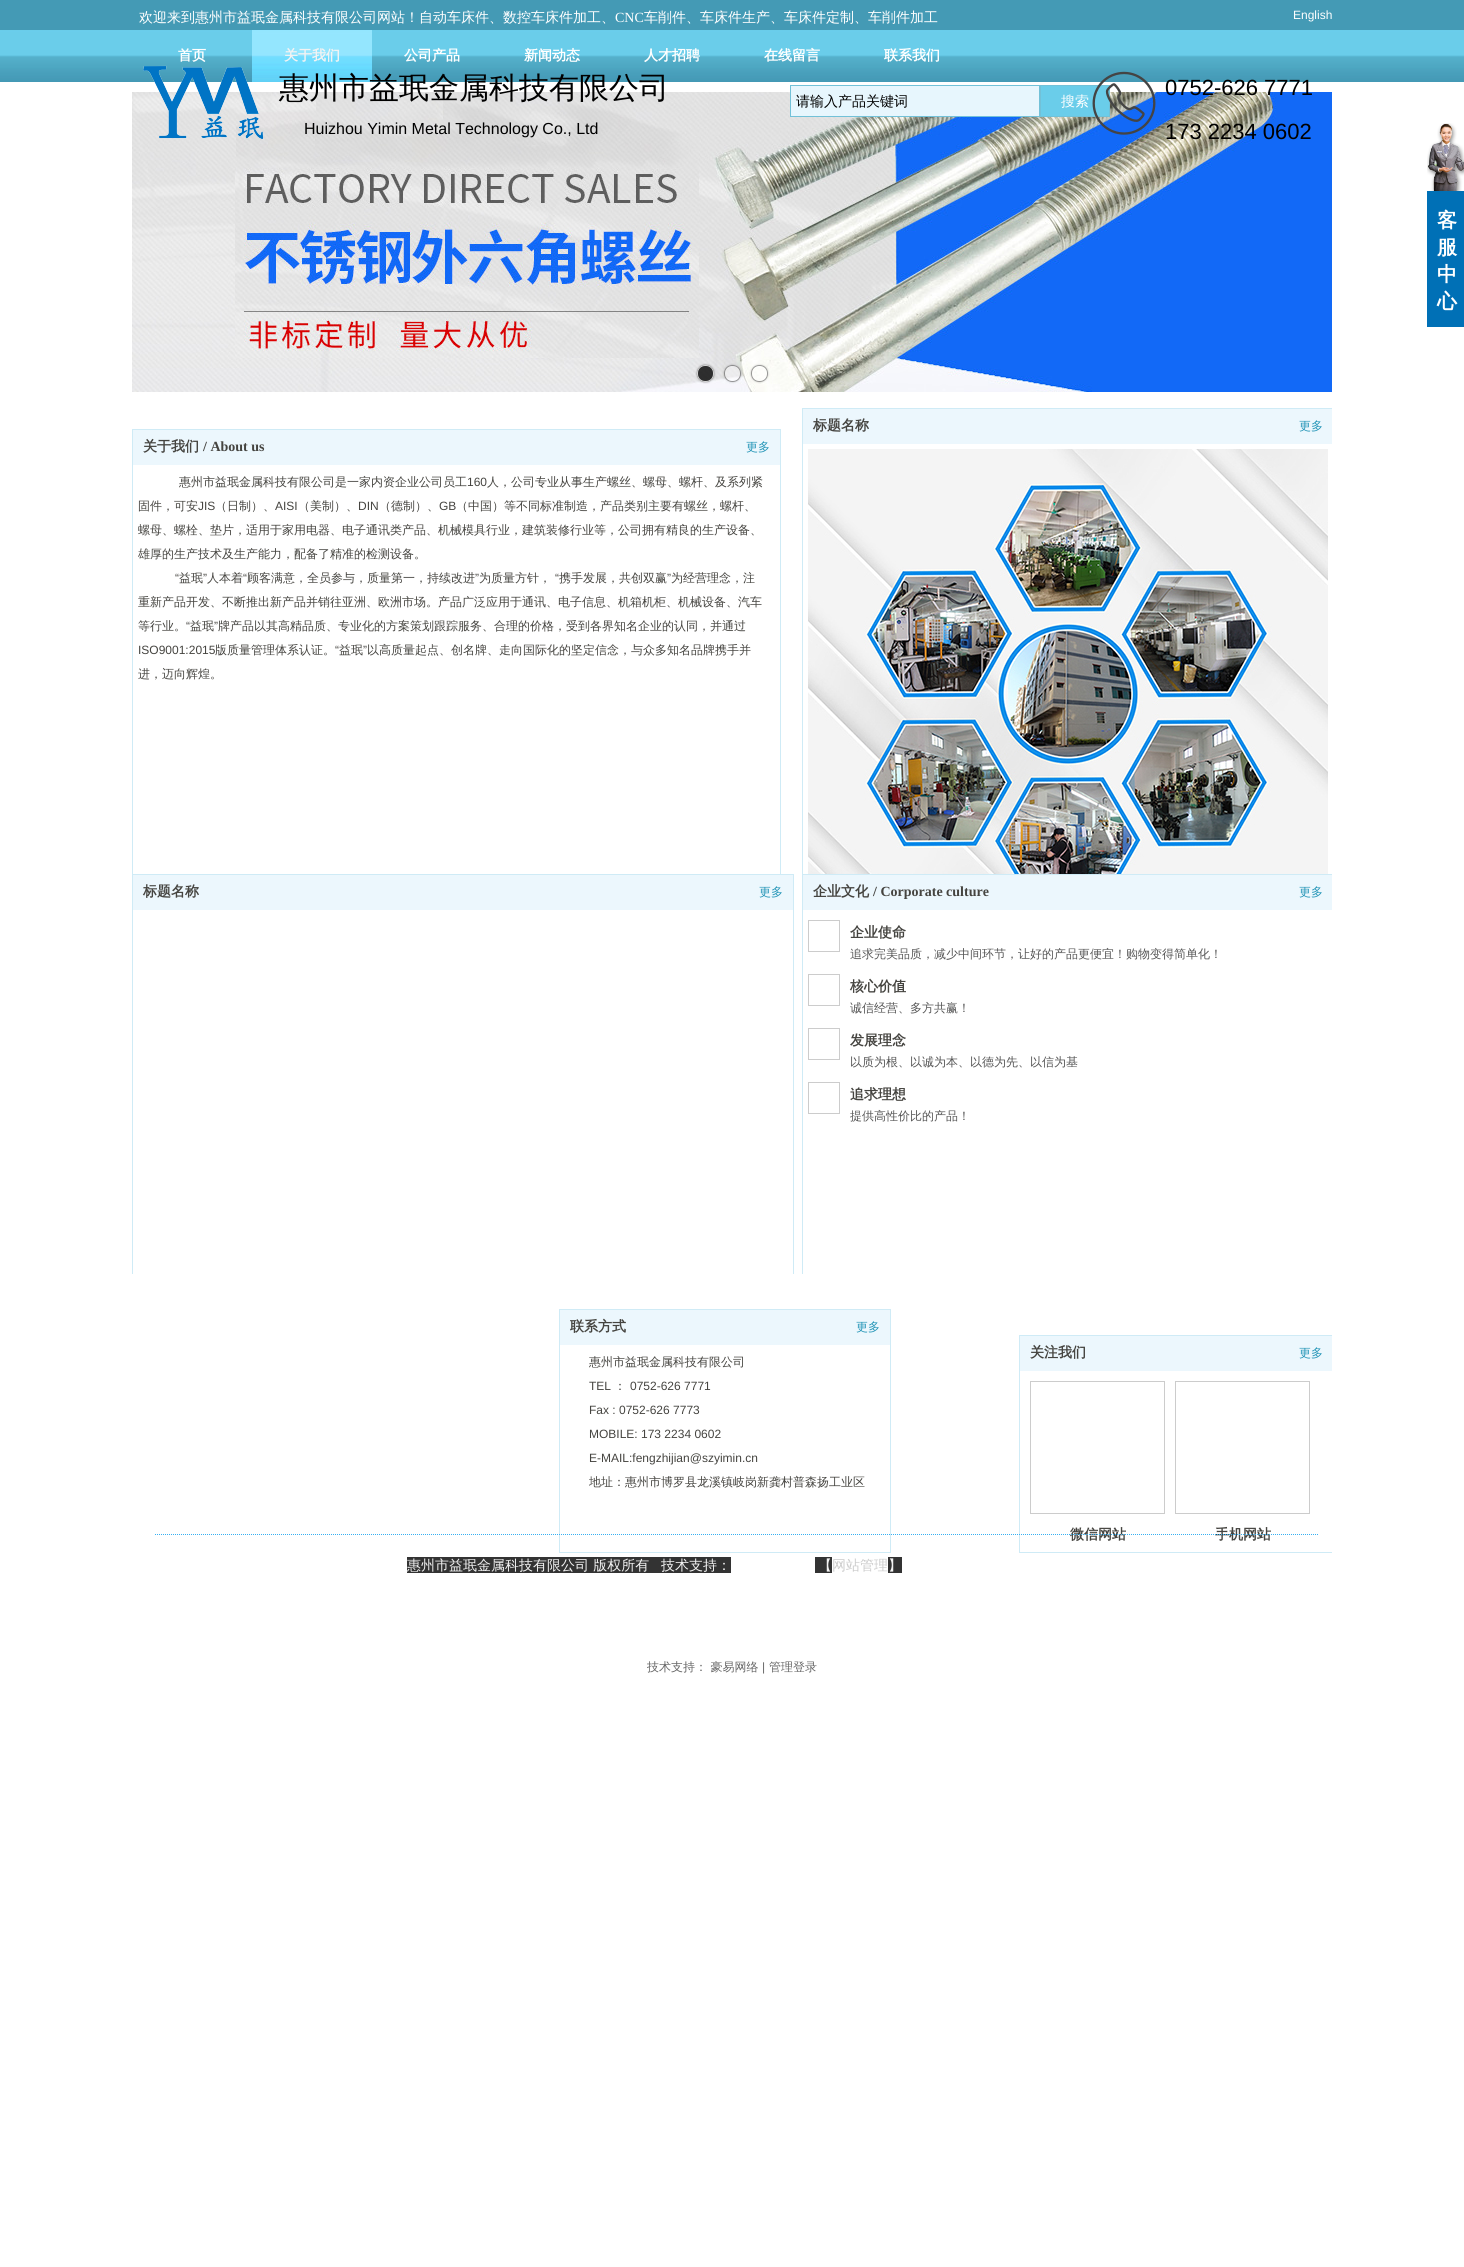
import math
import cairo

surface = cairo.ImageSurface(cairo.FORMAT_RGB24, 1464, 2267)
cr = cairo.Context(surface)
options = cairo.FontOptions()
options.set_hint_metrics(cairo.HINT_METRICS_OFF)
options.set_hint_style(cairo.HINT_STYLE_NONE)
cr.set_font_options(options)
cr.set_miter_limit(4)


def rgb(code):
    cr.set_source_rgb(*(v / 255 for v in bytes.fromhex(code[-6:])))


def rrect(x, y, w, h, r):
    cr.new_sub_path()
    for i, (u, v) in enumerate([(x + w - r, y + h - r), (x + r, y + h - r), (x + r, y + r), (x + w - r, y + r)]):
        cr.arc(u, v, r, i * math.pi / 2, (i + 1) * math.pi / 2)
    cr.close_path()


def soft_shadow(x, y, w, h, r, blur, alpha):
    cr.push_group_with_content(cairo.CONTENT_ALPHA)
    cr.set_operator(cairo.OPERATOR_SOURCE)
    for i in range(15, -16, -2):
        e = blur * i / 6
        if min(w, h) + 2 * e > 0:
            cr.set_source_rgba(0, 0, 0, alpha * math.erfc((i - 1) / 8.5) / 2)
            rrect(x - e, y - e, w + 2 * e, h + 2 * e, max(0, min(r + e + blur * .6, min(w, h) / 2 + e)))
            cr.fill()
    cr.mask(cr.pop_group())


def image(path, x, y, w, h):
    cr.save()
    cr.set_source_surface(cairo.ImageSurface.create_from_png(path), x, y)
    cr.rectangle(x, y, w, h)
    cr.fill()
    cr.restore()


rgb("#ffffff")
cr.paint()
image("img/3.png", 0, 30, 1464, 52)
image("img/4.png", 252, 30, 120, 52)
image("img/5.png", 132, 92, 1200, 300)
image("img/1.png", 143, 65, 121, 74)
rgb("#6acdea")
cr.rectangle(1040.5, 85.5, 69, 31)
cr.fill_preserve()
rgb("#72c1d8")
cr.set_line_width(1)
cr.stroke()
image("img/2.png", 1092, 71, 64, 64)
rgb("#449ab5")
cr.rectangle(0, 0, 1464, 30)
cr.fill()
cr.save()
cr.set_fill_rule(cairo.FILL_RULE_EVEN_ODD)
cr.new_path()
cr.move_to(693, 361)
cr.line_to(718, 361)
cr.line_to(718, 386)
cr.line_to(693, 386)
cr.close_path()
cr.move_to(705, 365)
cr.line_to(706, 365)
cr.curve_to(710.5, 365, 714, 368.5, 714, 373)
cr.line_to(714, 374)
cr.curve_to(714, 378.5, 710.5, 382, 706, 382)
cr.line_to(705, 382)
cr.curve_to(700.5, 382, 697, 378.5, 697, 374)
cr.line_to(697, 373)
cr.curve_to(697, 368.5, 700.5, 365, 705, 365)
cr.close_path()
cr.clip()
rgb("#000000")
soft_shadow(697, 365, 17, 17, 8, 1, 0.48)
cr.restore()
cr.set_source_rgba(0, 0, 0, 0.8)
rrect(697, 365, 17, 17, 8)
cr.fill()
rrect(697.5, 365.5, 16, 16, 7.5)
cr.set_source_rgba(1, 1, 1, 0.8)
cr.stroke()
cr.save()
cr.set_fill_rule(cairo.FILL_RULE_EVEN_ODD)
cr.new_path()
cr.move_to(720, 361)
cr.line_to(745, 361)
cr.line_to(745, 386)
cr.line_to(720, 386)
cr.close_path()
cr.move_to(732, 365)
cr.line_to(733, 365)
cr.curve_to(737.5, 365, 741, 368.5, 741, 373)
cr.line_to(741, 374)
cr.curve_to(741, 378.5, 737.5, 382, 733, 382)
cr.line_to(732, 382)
cr.curve_to(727.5, 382, 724, 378.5, 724, 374)
cr.line_to(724, 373)
cr.curve_to(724, 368.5, 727.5, 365, 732, 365)
cr.close_path()
cr.clip()
rgb("#000000")
soft_shadow(724, 365, 17, 17, 8, 1, 0.24)
cr.restore()
cr.set_source_rgba(1, 1, 1, 0.4)
rrect(724, 365, 17, 17, 8)
cr.fill()
rrect(724.5, 365.5, 16, 16, 7.5)
cr.set_source_rgba(0, 0, 0, 0.4)
cr.stroke()
cr.save()
cr.set_fill_rule(cairo.FILL_RULE_EVEN_ODD)
cr.new_path()
cr.move_to(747, 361)
cr.line_to(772, 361)
cr.line_to(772, 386)
cr.line_to(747, 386)
cr.close_path()
cr.move_to(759, 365)
cr.line_to(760, 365)
cr.curve_to(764.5, 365, 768, 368.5, 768, 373)
cr.line_to(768, 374)
cr.curve_to(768, 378.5, 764.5, 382, 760, 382)
cr.line_to(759, 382)
cr.curve_to(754.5, 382, 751, 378.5, 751, 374)
cr.line_to(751, 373)
cr.curve_to(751, 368.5, 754.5, 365, 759, 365)
cr.close_path()
cr.clip()
rgb("#000000")
soft_shadow(751, 365, 17, 17, 8, 1, 0.24)
cr.restore()
cr.set_source_rgba(1, 1, 1, 0.4)
rrect(751, 365, 17, 17, 8)
cr.fill()
rrect(751.5, 365.5, 16, 16, 7.5)
cr.set_source_rgba(0, 0, 0, 0.4)
cr.stroke()
rgb("#e7f6fd")
cr.rectangle(790.5, 85.5, 249, 31)
cr.fill_preserve()
rgb("#72c1d8")
cr.stroke()
image("img/6.png", 1427, 123, 37, 68)
rgb("#0070b6")
cr.rectangle(1427, 191, 37, 136)
cr.fill()
cr.save()
cr.rectangle(132, 402, 1200, 472)
cr.clip()
cr.rectangle(802.5, 408.5, 531, 467)
rgb("#cfebf6")
cr.stroke()
cr.restore()
rgb("#ecf7fd")
cr.rectangle(803, 409, 529, 35)
cr.fill()
image("img/7.png", 808, 449, 520, 425)
cr.rectangle(132.5, 429.5, 648, 446)
rgb("#cfebf6")
cr.stroke()
rgb("#ecf7fd")
cr.rectangle(133, 430, 647, 35)
cr.fill()
cr.save()
cr.rectangle(132, 874, 1200, 400)
cr.clip()
cr.rectangle(132.5, 874.5, 661, 401)
rgb("#cfebf6")
cr.stroke()
cr.restore()
cr.rectangle(133, 875, 660, 35)
cr.fill()
cr.save()
cr.rectangle(132, 874, 1200, 400)
cr.clip()
cr.rectangle(802.5, 874.5, 531, 401)
rgb("#cfebf6")
cr.stroke()
cr.restore()
cr.rectangle(803, 875, 529, 35)
cr.fill()
cr.rectangle(808.5, 920.5, 31, 31)
rgb("#cccccc")
cr.stroke()
cr.rectangle(808.5, 974.5, 31, 31)
cr.stroke()
cr.rectangle(808.5, 1028.5, 31, 31)
cr.stroke()
cr.rectangle(808.5, 1082.5, 31, 31)
cr.stroke()
cr.rectangle(559.5, 1309.5, 331, 243)
rgb("#cfebf6")
cr.stroke()
rgb("#ecf7fd")
cr.rectangle(560, 1310, 330, 35)
cr.fill()
cr.save()
cr.rectangle(132, 1274, 1200, 378)
cr.clip()
cr.rectangle(1019.5, 1335.5, 314, 217)
rgb("#cfebf6")
cr.stroke()
cr.restore()
cr.rectangle(1020, 1336, 312, 35)
cr.fill()
cr.rectangle(1030.5, 1381.5, 134, 132)
rgb("#cccccc")
cr.stroke()
cr.rectangle(1175.5, 1381.5, 134, 132)
cr.stroke()
for x, y, w, h, color in [
    (407, 1557, 324, 16, "#333333"),
    (815, 1557, 17, 16, "#333333"),
    (888, 1557, 14, 16, "#333333"),
]:
    rgb(color)
    cr.rectangle(x, y, w, h)
    cr.fill()
cr.select_font_face("WenQuanYi Zen Hei Medium")
cr.set_font_size(14)
rgb("#ffffff")
cr.move_to(139, 22)
cr.show_text("欢迎来到惠州市益珉金属科技有限公司网站！自动车床件、数控车床件加工、")
cr.select_font_face("Liberation Serif")
cr.move_to(615, 22)
cr.show_text("CNC")
cr.select_font_face("WenQuanYi Zen Hei Medium")
cr.move_to(644, 22)
cr.show_text("车削件、车床件生产、车床件定制、车削件加工")
cr.set_font_size(30)
rgb("#000000")
cr.move_to(279, 98)
cr.show_text("惠州市益珉金属科技有限公司")
cr.select_font_face("Liberation Sans")
cr.set_font_size(22)
cr.move_to(1165, 95)
cr.show_text("0752-626 7771")
cr.move_to(1165, 139)
cr.show_text("173 2234 0602")
cr.set_font_size(16)
cr.move_to(304, 134)
cr.show_text("Huizhou Yimin Metal Technology Co., Ltd")
cr.set_font_size(12)
rgb("#ffffff")
cr.move_to(1293, 19)
cr.show_text("English")
cr.select_font_face("WenQuanYi Zen Hei", cairo.FONT_SLANT_NORMAL, cairo.FONT_WEIGHT_BOLD)
cr.set_font_size(14)
cr.move_to(178, 60)
cr.show_text("首页")
rgb("#f3f3f3")
cr.move_to(284, 60)
cr.show_text("关于我们")
rgb("#ffffff")
for x, y, s in [
    (404, 60, "公司产品"),
    (524, 60, "新闻动态"),
    (644, 60, "人才招聘"),
    (764, 60, "在线留言"),
    (884, 60, "联系我们"),
]:
    cr.move_to(x, y)
    cr.show_text(s)
cr.select_font_face("WenQuanYi Zen Hei Medium")
rgb("#000000")
cr.move_to(796, 106)
cr.show_text("请输入产品关键词")
rgb("#ffffff")
cr.move_to(1061, 106)
cr.show_text("搜索")
cr.select_font_face("WenQuanYi Zen Hei", cairo.FONT_SLANT_NORMAL, cairo.FONT_WEIGHT_BOLD)
cr.set_font_size(20)
for x, y, s in [
    (1437, 227, "客"),
    (1437, 254, "服"),
    (1437, 281, "中"),
    (1437, 308, "心"),
]:
    cr.move_to(x, y)
    cr.show_text(s)
cr.set_font_size(14)
rgb("#454440")
cr.move_to(813, 430)
cr.show_text("标题名称")
cr.select_font_face("WenQuanYi Zen Hei Medium")
cr.set_font_size(12)
rgb("#2495b7")
cr.move_to(1299, 430)
cr.show_text("更多")
cr.select_font_face("WenQuanYi Zen Hei", cairo.FONT_SLANT_NORMAL, cairo.FONT_WEIGHT_BOLD)
cr.set_font_size(14)
rgb("#454440")
cr.move_to(143, 451)
cr.show_text("关于我们")
cr.select_font_face("Liberation Serif", cairo.FONT_SLANT_NORMAL, cairo.FONT_WEIGHT_BOLD)
cr.move_to(203, 451)
cr.show_text("/ About us")
cr.select_font_face("WenQuanYi Zen Hei Medium")
cr.set_font_size(12)
rgb("#2495b7")
cr.move_to(746, 451)
cr.show_text("更多")
rgb("#454440")
cr.move_to(179, 486)
cr.show_text("惠州市益珉金属科技有限公司是一家内资企业公司员工")
cr.select_font_face("Liberation Sans")
cr.move_to(467, 486)
cr.show_text("160")
cr.select_font_face("WenQuanYi Zen Hei Medium")
cr.move_to(487, 486)
cr.show_text("人，公司专业从事生产螺丝、螺母、螺杆、及系列紧")
cr.move_to(138, 510)
cr.show_text("固件，可安")
cr.select_font_face("Liberation Sans")
cr.move_to(198, 510)
cr.show_text("JIS")
cr.select_font_face("WenQuanYi Zen Hei Medium")
cr.move_to(215, 510)
cr.show_text("（日制）、")
cr.select_font_face("Liberation Sans")
cr.move_to(275, 510)
cr.show_text("AISI")
cr.select_font_face("WenQuanYi Zen Hei Medium")
cr.move_to(298, 510)
cr.show_text("（美制）、")
cr.select_font_face("Liberation Sans")
cr.move_to(358, 510)
cr.show_text("DIN")
cr.select_font_face("WenQuanYi Zen Hei Medium")
cr.move_to(379, 510)
cr.show_text("（德制）、")
cr.select_font_face("Liberation Sans")
cr.move_to(439, 510)
cr.show_text("GB")
cr.select_font_face("WenQuanYi Zen Hei Medium")
for x, y, s in [
    (456, 510, "（中国）等不同标准制造，产品类别主要有螺丝，螺杆、"),
    (138, 534, "螺母、螺栓、垫片，适用于家用电器、电子通讯类产品、机械模具行业，建筑装修行业等，公司拥有精良的生产设备、"),
    (138, 558, "雄厚的生产技术及生产能力，配备了精准的检测设备。"),
]:
    cr.move_to(x, y)
    cr.show_text(s)
cr.select_font_face("Liberation Sans")
cr.move_to(175, 582)
cr.show_text("“")
cr.select_font_face("WenQuanYi Zen Hei Medium")
cr.move_to(179, 582)
cr.show_text("益珉")
cr.select_font_face("Liberation Sans")
cr.move_to(203, 582)
cr.show_text("”")
cr.select_font_face("WenQuanYi Zen Hei Medium")
cr.move_to(207, 582)
cr.show_text("人本着")
cr.select_font_face("Liberation Sans")
cr.move_to(243, 582)
cr.show_text("“")
cr.select_font_face("WenQuanYi Zen Hei Medium")
cr.move_to(247, 582)
cr.show_text("顾客满意，全员参与，质量第一，持续改进")
cr.select_font_face("Liberation Sans")
cr.move_to(475, 582)
cr.show_text("”")
cr.select_font_face("WenQuanYi Zen Hei Medium")
cr.move_to(479, 582)
cr.show_text("为质量方针，")
cr.select_font_face("Liberation Sans")
cr.move_to(555, 582)
cr.show_text("“")
cr.select_font_face("WenQuanYi Zen Hei Medium")
cr.move_to(559, 582)
cr.show_text("携手发展，共创双赢")
cr.select_font_face("Liberation Sans")
cr.move_to(667, 582)
cr.show_text("”")
cr.select_font_face("WenQuanYi Zen Hei Medium")
for x, y, s in [
    (671, 582, "为经营理念，注"),
    (138, 606, "重新产品开发、不断推出新产品并销往亚洲、欧洲市场。产品广泛应用于通讯、电子信息、机箱机柜、机械设备、汽车"),
    (138, 630, "等行业。"),
]:
    cr.move_to(x, y)
    cr.show_text(s)
cr.select_font_face("Liberation Sans")
cr.move_to(186, 630)
cr.show_text("“")
cr.select_font_face("WenQuanYi Zen Hei Medium")
cr.move_to(190, 630)
cr.show_text("益珉")
cr.select_font_face("Liberation Sans")
cr.move_to(214, 630)
cr.show_text("”")
cr.select_font_face("WenQuanYi Zen Hei Medium")
cr.move_to(218, 630)
cr.show_text("牌产品以其高精品质、专业化的方案策划跟踪服务、合理的价格，受到各界知名企业的认同，并通过")
cr.select_font_face("Liberation Sans")
cr.move_to(138, 654)
cr.show_text("ISO9001:2015")
cr.select_font_face("WenQuanYi Zen Hei Medium")
cr.move_to(215, 654)
cr.show_text("版质量管理体系认证。")
cr.select_font_face("Liberation Sans")
cr.move_to(335, 654)
cr.show_text("“")
cr.select_font_face("WenQuanYi Zen Hei Medium")
cr.move_to(339, 654)
cr.show_text("益珉")
cr.select_font_face("Liberation Sans")
cr.move_to(363, 654)
cr.show_text("”")
cr.select_font_face("WenQuanYi Zen Hei Medium")
cr.move_to(367, 654)
cr.show_text("以高质量起点、创名牌、走向国际化的坚定信念，与众多知名品牌携手并")
cr.move_to(138, 678)
cr.show_text("进，迈向辉煌。")
cr.select_font_face("WenQuanYi Zen Hei", cairo.FONT_SLANT_NORMAL, cairo.FONT_WEIGHT_BOLD)
cr.set_font_size(14)
cr.move_to(143, 896)
cr.show_text("标题名称")
cr.select_font_face("WenQuanYi Zen Hei Medium")
cr.set_font_size(12)
rgb("#2495b7")
cr.move_to(759, 896)
cr.show_text("更多")
cr.select_font_face("WenQuanYi Zen Hei", cairo.FONT_SLANT_NORMAL, cairo.FONT_WEIGHT_BOLD)
cr.set_font_size(14)
rgb("#454440")
cr.move_to(813, 896)
cr.show_text("企业文化")
cr.select_font_face("Liberation Serif", cairo.FONT_SLANT_NORMAL, cairo.FONT_WEIGHT_BOLD)
cr.move_to(873, 896)
cr.show_text("/ Corporate culture")
cr.select_font_face("WenQuanYi Zen Hei Medium")
cr.set_font_size(12)
rgb("#2495b7")
cr.move_to(1299, 896)
cr.show_text("更多")
cr.select_font_face("WenQuanYi Zen Hei", cairo.FONT_SLANT_NORMAL, cairo.FONT_WEIGHT_BOLD)
cr.set_font_size(14)
rgb("#454440")
cr.move_to(850, 937)
cr.show_text("企业使命")
cr.select_font_face("WenQuanYi Zen Hei Medium")
cr.set_font_size(12)
rgb("#555555")
cr.move_to(850, 958)
cr.show_text("追求完美品质，减少中间环节，让好的产品更便宜！购物变得简单化！")
cr.select_font_face("WenQuanYi Zen Hei", cairo.FONT_SLANT_NORMAL, cairo.FONT_WEIGHT_BOLD)
cr.set_font_size(14)
rgb("#454440")
cr.move_to(850, 991)
cr.show_text("核心价值")
cr.select_font_face("WenQuanYi Zen Hei Medium")
cr.set_font_size(12)
rgb("#555555")
cr.move_to(850, 1012)
cr.show_text("诚信经营、多方共赢！")
cr.select_font_face("WenQuanYi Zen Hei", cairo.FONT_SLANT_NORMAL, cairo.FONT_WEIGHT_BOLD)
cr.set_font_size(14)
rgb("#454440")
cr.move_to(850, 1045)
cr.show_text("发展理念")
cr.select_font_face("WenQuanYi Zen Hei Medium")
cr.set_font_size(12)
rgb("#555555")
cr.move_to(850, 1066)
cr.show_text("以质为根、以诚为本、以德为先、以信为基")
cr.select_font_face("WenQuanYi Zen Hei", cairo.FONT_SLANT_NORMAL, cairo.FONT_WEIGHT_BOLD)
cr.set_font_size(14)
rgb("#454440")
cr.move_to(850, 1099)
cr.show_text("追求理想")
cr.select_font_face("WenQuanYi Zen Hei Medium")
cr.set_font_size(12)
rgb("#555555")
cr.move_to(850, 1120)
cr.show_text("提供高性价比的产品！")
cr.select_font_face("WenQuanYi Zen Hei", cairo.FONT_SLANT_NORMAL, cairo.FONT_WEIGHT_BOLD)
cr.set_font_size(14)
rgb("#454440")
cr.move_to(570, 1331)
cr.show_text("联系方式")
cr.select_font_face("WenQuanYi Zen Hei Medium")
cr.set_font_size(12)
rgb("#2495b7")
cr.move_to(856, 1331)
cr.show_text("更多")
rgb("#454440")
cr.move_to(589, 1366)
cr.show_text("惠州市益珉金属科技有限公司")
cr.select_font_face("Liberation Sans")
cr.move_to(589, 1390)
cr.show_text("TEL")
cr.select_font_face("WenQuanYi Zen Hei Medium")
cr.move_to(614, 1390)
cr.show_text("：")
cr.select_font_face("Liberation Sans")
for x, y, s in [
    (630, 1390, "0752-626 7771"),
    (589, 1414, "Fax : 0752-626 7773"),
    (589, 1438, "MOBILE: 173 2234 0602"),
    (589, 1462, "E-MAIL:fengzhijian@szyimin.cn"),
]:
    cr.move_to(x, y)
    cr.show_text(s)
cr.select_font_face("WenQuanYi Zen Hei Medium")
cr.move_to(589, 1486)
cr.show_text("地址：惠州市博罗县龙溪镇岐岗新龚村普森扬工业区")
cr.select_font_face("WenQuanYi Zen Hei", cairo.FONT_SLANT_NORMAL, cairo.FONT_WEIGHT_BOLD)
cr.set_font_size(14)
cr.move_to(1030, 1357)
cr.show_text("关注我们")
cr.select_font_face("WenQuanYi Zen Hei Medium")
cr.set_font_size(12)
rgb("#2495b7")
cr.move_to(1299, 1357)
cr.show_text("更多")
cr.select_font_face("WenQuanYi Zen Hei", cairo.FONT_SLANT_NORMAL, cairo.FONT_WEIGHT_BOLD)
cr.set_font_size(14)
rgb("#454440")
cr.move_to(1070, 1539)
cr.show_text("微信网站")
cr.move_to(1215, 1539)
cr.show_text("手机网站")
cr.new_path()
cr.move_to(155, 1534.5)
cr.line_to(1318, 1534.5)
rgb("#36b0f3")
cr.set_dash([1, 1])
cr.stroke()
cr.select_font_face("WenQuanYi Zen Hei Medium")
rgb("#f3f3f3")
for x, y, s in [
    (407, 1570, "惠州市益珉金属科技有限公司 版权所有"),
    (661, 1570, "技术支持："),
    (818, 1570, "【"),
]:
    cr.move_to(x, y)
    cr.show_text(s)
rgb("#cccccc")
cr.move_to(832, 1570)
cr.show_text("网站管理")
rgb("#f3f3f3")
cr.move_to(888, 1570)
cr.show_text("】")
cr.set_font_size(12)
rgb("#666666")
cr.move_to(647, 1671)
cr.show_text("技术支持： 豪易网络")
cr.select_font_face("Liberation Sans")
cr.move_to(762, 1671)
cr.show_text("|")
cr.select_font_face("WenQuanYi Zen Hei Medium")
cr.move_to(769, 1671)
cr.show_text("管理登录")
surface.write_to_png("page.png")
